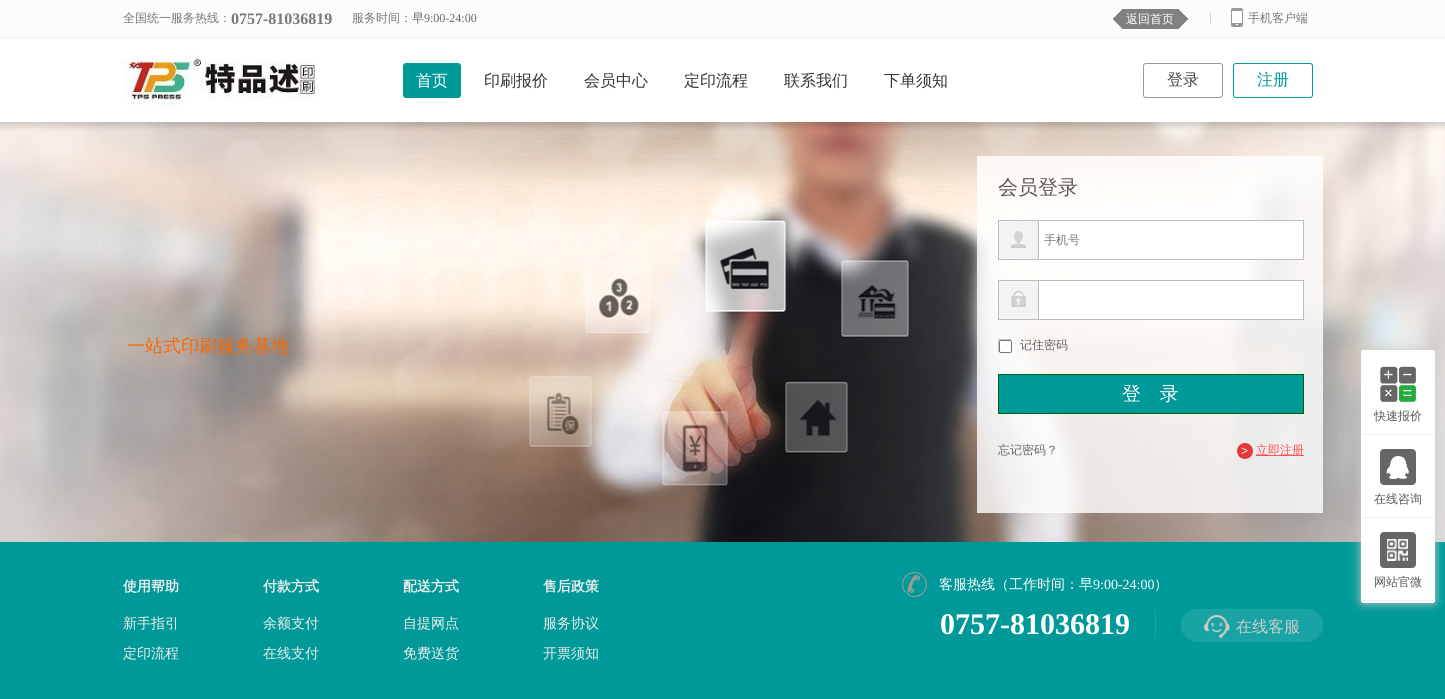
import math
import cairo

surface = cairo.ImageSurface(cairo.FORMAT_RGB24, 1445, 699)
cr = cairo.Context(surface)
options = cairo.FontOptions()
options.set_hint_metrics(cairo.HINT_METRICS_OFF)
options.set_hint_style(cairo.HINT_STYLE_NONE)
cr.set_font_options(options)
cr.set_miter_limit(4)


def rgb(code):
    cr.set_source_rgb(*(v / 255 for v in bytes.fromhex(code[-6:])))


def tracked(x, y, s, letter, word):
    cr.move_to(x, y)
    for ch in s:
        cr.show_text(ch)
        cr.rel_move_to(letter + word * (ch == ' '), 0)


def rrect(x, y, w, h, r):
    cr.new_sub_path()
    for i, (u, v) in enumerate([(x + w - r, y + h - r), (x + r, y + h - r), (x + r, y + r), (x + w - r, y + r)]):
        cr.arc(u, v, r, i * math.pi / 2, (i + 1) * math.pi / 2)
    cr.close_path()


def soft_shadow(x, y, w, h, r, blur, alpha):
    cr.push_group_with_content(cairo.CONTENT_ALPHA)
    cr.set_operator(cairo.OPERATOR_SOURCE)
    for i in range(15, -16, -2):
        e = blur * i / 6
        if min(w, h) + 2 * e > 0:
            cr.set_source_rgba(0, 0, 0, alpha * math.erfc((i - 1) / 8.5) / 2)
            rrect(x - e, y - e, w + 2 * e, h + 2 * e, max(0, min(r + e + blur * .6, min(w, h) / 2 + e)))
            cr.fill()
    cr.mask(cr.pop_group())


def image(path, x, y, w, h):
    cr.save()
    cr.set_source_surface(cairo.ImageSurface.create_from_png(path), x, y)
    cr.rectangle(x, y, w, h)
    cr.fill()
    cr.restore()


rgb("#ffffff")
cr.paint()
rgb("#fcfcfc")
cr.rectangle(0, 0, 1445, 37)
cr.fill()
rgb("#f0f0f0")
cr.rectangle(0, 37, 1445, 1)
cr.fill()
image("img/1.png", 1113, 9, 75, 20)
rgb("#d2d2d2")
cr.rectangle(1210, 13, 1, 10)
cr.fill()
image("img/2.png", 1231, 8, 12, 19)
image("img/3.png", 123, 48, 194, 58)
rgb("#009999")
rrect(403, 63, 58, 35, 3)
cr.fill()
rrect(1143.5, 63.5, 79, 34, 2.5)
rgb("#999999")
cr.set_line_width(1)
cr.stroke()
rrect(1233.5, 63.5, 79, 34, 2.5)
rgb("#009999")
cr.stroke()
image("img/4.png", 0, 122, 1445, 420)
cr.set_source_rgba(1, 1, 1, 0.8)
cr.rectangle(977, 156, 346, 357)
cr.fill()
rgb("#f3f3f3")
cr.rectangle(999, 221, 39, 38)
cr.fill()
rgb("#bdbdbd")
cr.rectangle(998, 220, 40, 1)
cr.rectangle(998, 259, 40, 1)
cr.rectangle(998, 220, 1, 40)
cr.fill()
image("img/5.png", 1011, 231, 15, 17)
rgb("#ffffff")
cr.rectangle(1038.5, 220.5, 265, 39)
cr.fill_preserve()
rgb("#bdbdbd")
cr.stroke()
for x, y, w, h, color in [
    (999, 281, 39, 38, "#f3f3f3"),
    (998, 280, 40, 1, "#bdbdbd"),
    (998, 319, 40, 1, "#bdbdbd"),
    (998, 280, 1, 40, "#bdbdbd"),
]:
    rgb(color)
    cr.rectangle(x, y, w, h)
    cr.fill()
image("img/6.png", 1011, 291, 15, 16)
rgb("#ffffff")
cr.rectangle(1038.5, 280.5, 265, 39)
cr.fill_preserve()
rgb("#bdbdbd")
cr.stroke()
cr.rectangle(998.5, 339.5, 12, 12)
rgb("#c5c5c5")
cr.stroke()
rgb("#ffffff")
rrect(999.5, 340.5, 12, 12, 1.5)
cr.fill_preserve()
rgb("#767676")
cr.stroke()
rgb("#009999")
cr.rectangle(998.5, 374.5, 305, 39)
cr.fill_preserve()
rgb("#006600")
cr.stroke()
rgb("#e4393c")
cr.arc(1245, 451, 8, 0, 2 * math.pi)
cr.fill()
rgb("#fd5455")
cr.rectangle(1256, 455, 48, 1)
cr.fill()
rgb("#009999")
cr.rectangle(0, 542, 1445, 157)
cr.fill()
rgb("#cccccc")
soft_shadow(1361, 350, 74, 253, 2, 5, 1)
rgb("#ffffff")
rrect(1361, 350, 74, 253, 2)
cr.fill()
rgb("#eeeeee")
cr.rectangle(1363, 434, 70, 1)
cr.fill()
image("img/7.png", 1380, 366, 36, 36)
cr.rectangle(1363, 517, 70, 1)
cr.fill()
image("img/8.png", 1380, 449, 36, 36)
cr.rectangle(1363, 600, 70, 1)
cr.fill()
image("img/9.png", 1380, 532, 36, 36)
image("img/10.png", 902, 572, 25, 25)
rgb("#1aa3a3")
cr.rectangle(1155, 609, 1, 30)
cr.fill()
rrect(1181, 609, 142, 33, 16.5)
cr.fill()
image("img/11.png", 1204, 615, 26, 23)
cr.select_font_face("WenQuanYi Zen Hei Medium")
cr.set_font_size(12)
rgb("#777777")
cr.move_to(123, 22)
cr.show_text("全国统一服务热线：")
cr.select_font_face("Liberation Serif", cairo.FONT_SLANT_NORMAL, cairo.FONT_WEIGHT_BOLD)
cr.set_font_size(16)
cr.move_to(231, 24)
cr.show_text("0757-81036819")
cr.select_font_face("WenQuanYi Zen Hei Medium")
cr.set_font_size(12)
cr.move_to(352, 22)
cr.show_text("服务时间：")
rgb("#666666")
cr.move_to(412, 22)
cr.show_text("早")
cr.select_font_face("Liberation Serif")
cr.move_to(424, 22)
cr.show_text("9:00-24:00")
cr.select_font_face("WenQuanYi Zen Hei Medium")
rgb("#ffffff")
cr.move_to(1126, 23)
cr.show_text("返回首页")
rgb("#777777")
cr.move_to(1248, 22)
cr.show_text("手机客户端")
cr.set_font_size(16)
rgb("#ffffff")
cr.move_to(416, 86)
cr.show_text("首页")
rgb("#333333")
for x, y, s in [
    (484, 86, "印刷报价"),
    (584, 86, "会员中心"),
    (684, 86, "定印流程"),
    (784, 86, "联系我们"),
    (884, 86, "下单须知"),
]:
    cr.move_to(x, y)
    cr.show_text(s)
rgb("#444444")
cr.move_to(1167, 85)
cr.show_text("登录")
rgb("#009999")
cr.move_to(1257, 85)
cr.show_text("注册")
cr.set_font_size(18)
rgb("#ff6600")
cr.move_to(127, 352)
cr.show_text("一站式印刷服务基地")
cr.set_font_size(20)
rgb("#585858")
cr.move_to(998, 194)
cr.show_text("会员登录")
cr.set_font_size(12)
rgb("#777777")
cr.move_to(1044, 244)
cr.show_text("手机号")
rgb("#666666")
cr.move_to(1020, 349)
cr.show_text("记住密码")
cr.set_font_size(19)
rgb("#ffffff")
tracked(1122, 400, "登    录", 0, -1)
cr.set_font_size(12)
rgb("#666666")
cr.move_to(998, 454)
cr.show_text("忘记密码？")
cr.select_font_face("Liberation Serif", cairo.FONT_SLANT_NORMAL, cairo.FONT_WEIGHT_BOLD)
cr.set_font_size(13)
rgb("#ffffff")
cr.move_to(1241, 455)
cr.show_text(">")
cr.select_font_face("WenQuanYi Zen Hei Medium")
cr.set_font_size(12)
rgb("#fd5455")
cr.move_to(1256, 454)
cr.show_text("立即注册")
rgb("#585858")
for x, y, s in [
    (1374, 420, "快速报价"),
    (1374, 503, "在线咨询"),
    (1374, 586, "网站官微"),
]:
    cr.move_to(x, y)
    cr.show_text(s)
cr.select_font_face("WenQuanYi Zen Hei", cairo.FONT_SLANT_NORMAL, cairo.FONT_WEIGHT_BOLD)
cr.set_font_size(14)
rgb("#eeeeee")
cr.move_to(123, 591)
cr.show_text("使用帮助")
cr.select_font_face("WenQuanYi Zen Hei Medium")
cr.move_to(123, 628)
cr.show_text("新手指引")
cr.move_to(123, 658)
cr.show_text("定印流程")
cr.select_font_face("WenQuanYi Zen Hei", cairo.FONT_SLANT_NORMAL, cairo.FONT_WEIGHT_BOLD)
cr.move_to(263, 591)
cr.show_text("付款方式")
cr.select_font_face("WenQuanYi Zen Hei Medium")
cr.move_to(263, 628)
cr.show_text("余额支付")
cr.move_to(263, 658)
cr.show_text("在线支付")
cr.select_font_face("WenQuanYi Zen Hei", cairo.FONT_SLANT_NORMAL, cairo.FONT_WEIGHT_BOLD)
cr.move_to(403, 591)
cr.show_text("配送方式")
cr.select_font_face("WenQuanYi Zen Hei Medium")
cr.move_to(403, 628)
cr.show_text("自提网点")
cr.move_to(403, 658)
cr.show_text("免费送货")
cr.select_font_face("WenQuanYi Zen Hei", cairo.FONT_SLANT_NORMAL, cairo.FONT_WEIGHT_BOLD)
cr.move_to(543, 591)
cr.show_text("售后政策")
cr.select_font_face("WenQuanYi Zen Hei Medium")
cr.move_to(543, 628)
cr.show_text("服务协议")
cr.move_to(543, 658)
cr.show_text("开票须知")
rgb("#ffffff")
cr.move_to(939, 589)
cr.show_text("客服热线（工作时间：早")
cr.select_font_face("Liberation Serif")
cr.move_to(1093, 589)
cr.show_text("9:00-24:00")
cr.select_font_face("WenQuanYi Zen Hei Medium")
cr.move_to(1154, 589)
cr.show_text("）")
cr.select_font_face("Liberation Serif", cairo.FONT_SLANT_NORMAL, cairo.FONT_WEIGHT_BOLD)
cr.set_font_size(30)
cr.move_to(940, 634)
cr.show_text("0757-81036819")
cr.select_font_face("WenQuanYi Zen Hei Medium")
cr.set_font_size(16)
rgb("#cccccc")
cr.move_to(1236, 632)
cr.show_text("在线客服")
surface.write_to_png("page.png")
